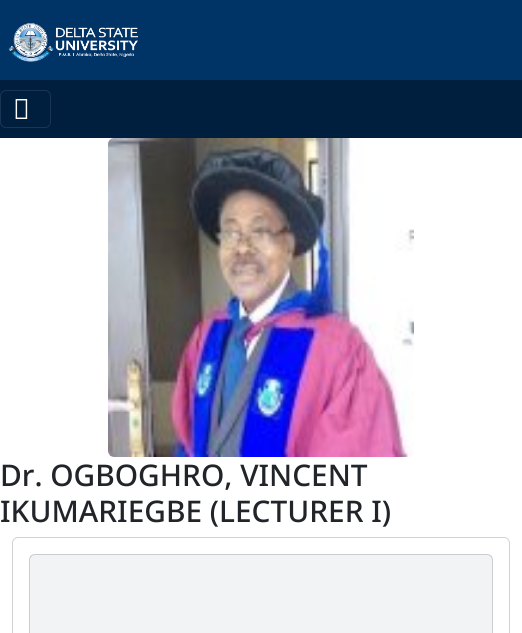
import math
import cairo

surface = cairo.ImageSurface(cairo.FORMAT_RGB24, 522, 633)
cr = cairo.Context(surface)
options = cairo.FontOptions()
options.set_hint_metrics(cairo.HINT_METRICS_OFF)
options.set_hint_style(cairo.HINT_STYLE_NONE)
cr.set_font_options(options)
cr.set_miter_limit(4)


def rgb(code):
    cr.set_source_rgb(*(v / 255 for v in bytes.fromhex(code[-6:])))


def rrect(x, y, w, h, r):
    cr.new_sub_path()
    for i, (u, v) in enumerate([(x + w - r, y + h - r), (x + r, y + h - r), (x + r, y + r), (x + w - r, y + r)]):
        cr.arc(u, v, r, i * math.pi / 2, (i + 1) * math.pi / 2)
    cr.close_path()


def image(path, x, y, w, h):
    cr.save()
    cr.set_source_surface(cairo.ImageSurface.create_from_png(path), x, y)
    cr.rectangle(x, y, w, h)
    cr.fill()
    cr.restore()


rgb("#ffffff")
cr.paint()
rgb("#003366")
cr.rectangle(0, 0, 522, 80)
cr.fill()
image("img/1.png", 8, 23, 130, 39)
rgb("#001f3f")
cr.rectangle(0, 80, 522, 58)
cr.fill()
rrect(0.5, 90.5, 50, 37, 5.5)
rgb("#1a3552")
cr.set_line_width(1)
cr.stroke()
image("img/2.png", 15, 99, 13, 20)
image("img/3.png", 108, 138, 306, 319)
rrect(12.5, 537.5, 497, 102, 5.5)
rgb("#d2d2d2")
cr.stroke()
rgb("#f8f9fa")
rrect(29.5, 554.5, 463, 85, 5.5)
cr.fill_preserve()
rgb("#cccdce")
cr.stroke()
cr.set_source_rgba(0.129, 0.145, 0.161, 0.03)
cr.rectangle(30, 555, 462, 78)
cr.fill()
cr.select_font_face("Noto Sans Medium")
cr.set_font_size(29.8)
rgb("#212529")
cr.move_to(0, 486)
cr.show_text("Dr. OGBOGHRO, VINCENT")
cr.move_to(0, 522)
cr.show_text("IKUMARIEGBE (LECTURER I)")
surface.write_to_png("page.png")
